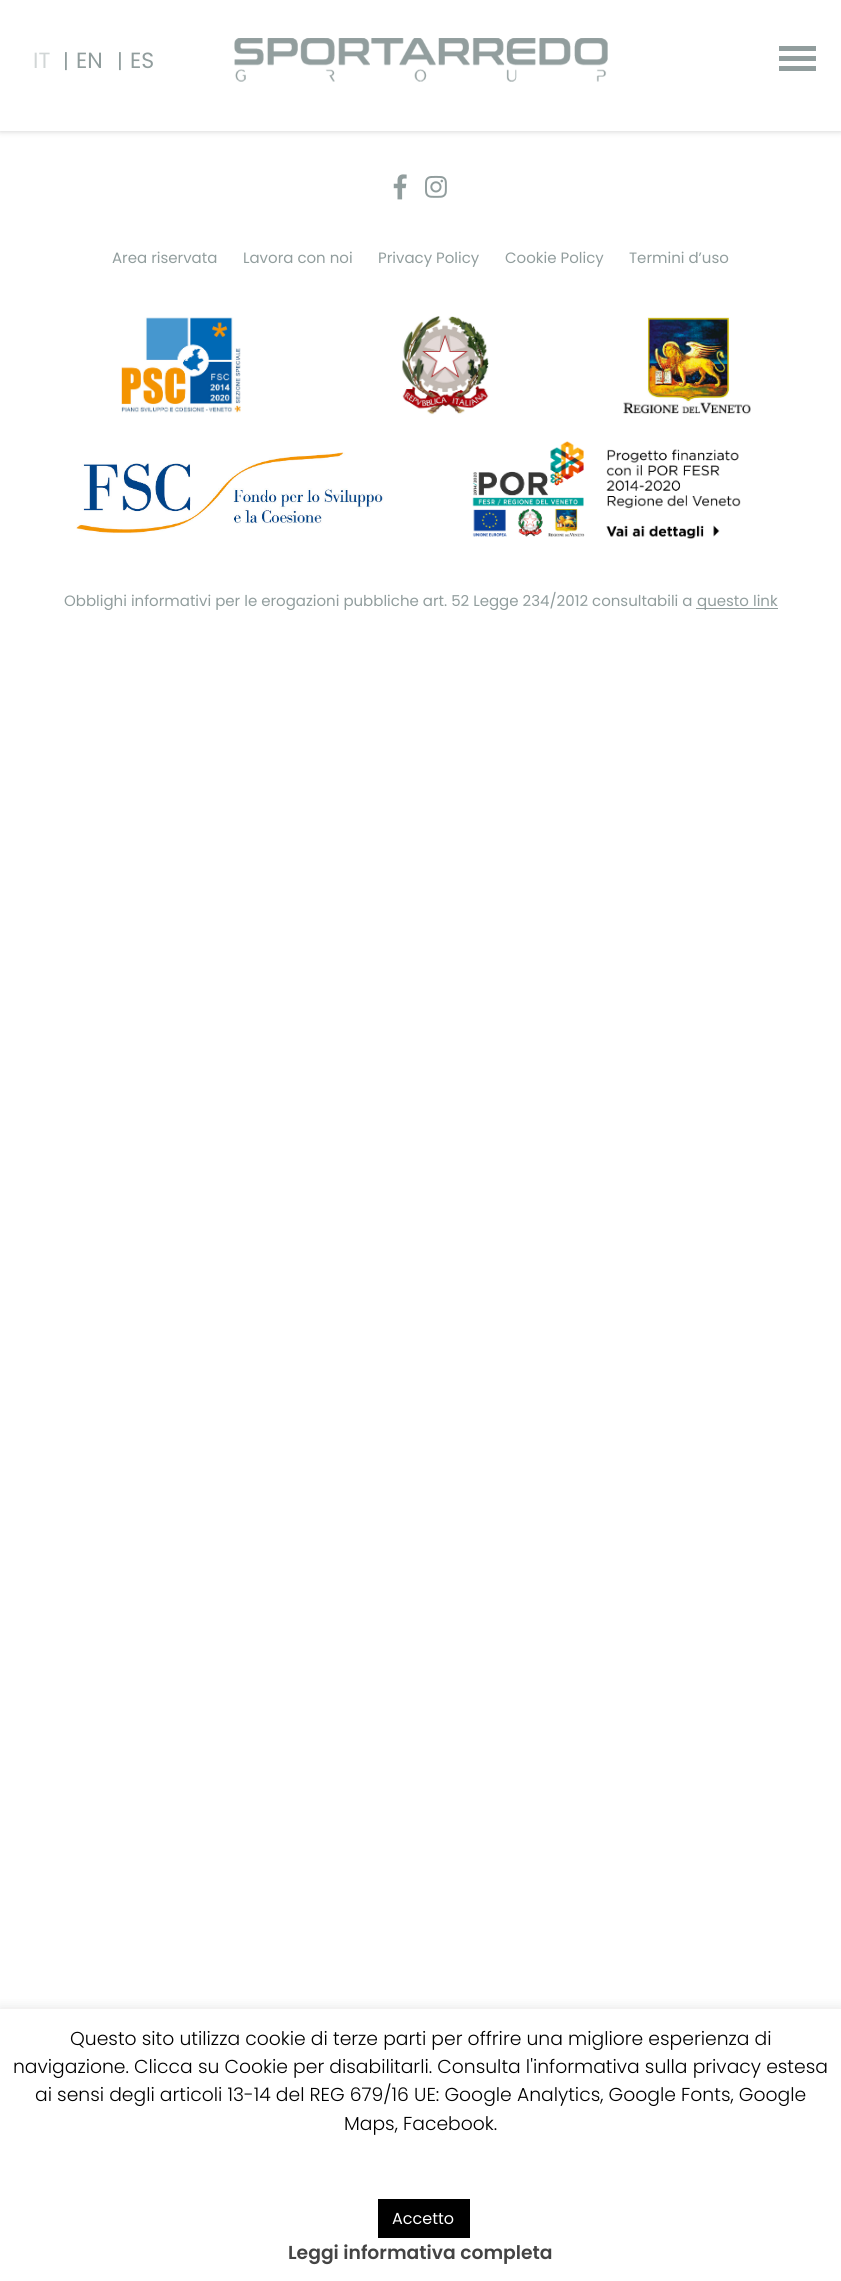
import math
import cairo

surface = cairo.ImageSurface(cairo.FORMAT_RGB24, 841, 2281)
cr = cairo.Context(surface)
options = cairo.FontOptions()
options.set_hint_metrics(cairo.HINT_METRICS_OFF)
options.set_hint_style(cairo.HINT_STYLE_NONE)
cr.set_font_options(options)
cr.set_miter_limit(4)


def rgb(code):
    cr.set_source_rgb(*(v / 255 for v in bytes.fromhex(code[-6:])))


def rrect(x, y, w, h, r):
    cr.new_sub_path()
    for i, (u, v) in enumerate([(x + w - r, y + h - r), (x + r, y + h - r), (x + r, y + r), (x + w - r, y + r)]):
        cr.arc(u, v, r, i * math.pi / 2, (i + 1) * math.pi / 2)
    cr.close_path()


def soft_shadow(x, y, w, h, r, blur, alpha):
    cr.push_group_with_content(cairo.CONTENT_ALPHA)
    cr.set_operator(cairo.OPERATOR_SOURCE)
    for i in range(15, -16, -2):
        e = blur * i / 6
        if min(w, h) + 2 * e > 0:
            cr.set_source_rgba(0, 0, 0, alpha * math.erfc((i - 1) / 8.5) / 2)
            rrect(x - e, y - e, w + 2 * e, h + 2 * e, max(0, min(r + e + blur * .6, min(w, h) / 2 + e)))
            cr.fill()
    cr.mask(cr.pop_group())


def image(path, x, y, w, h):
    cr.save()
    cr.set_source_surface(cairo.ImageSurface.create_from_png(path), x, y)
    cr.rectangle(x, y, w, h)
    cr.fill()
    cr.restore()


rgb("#ffffff")
cr.paint()
rgb("#cccccc")
soft_shadow(0, 0, 841, 131, 0, 3, 1)
rgb("#ffffff")
cr.rectangle(0, 0, 841, 131)
cr.fill()
image("img/1.png", 234, 38, 374, 44)
for x, y, w, h, color in [
    (779, 56, 37, 5, "#919d9d"),
    (779, 46, 37, 5, "#919d9d"),
    (779, 66, 37, 5, "#919d9d"),
]:
    rgb(color)
    cr.rectangle(x, y, w, h)
    cr.fill()
image("img/2.png", 393, 174, 14, 26)
image("img/3.png", 425, 175, 22, 23)
image("img/4.png", 121, 317, 120, 96)
image("img/5.png", 402, 316, 87, 99)
image("img/6.png", 623, 317, 128, 98)
image("img/7.png", 76, 452, 308, 82)
image("img/8.png", 472, 441, 269, 98)
cr.rectangle(696, 608, 82, 1)
cr.fill()
cr.save()
cr.rectangle(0, 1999, 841, 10)
cr.clip()
rgb("#acabab")
soft_shadow(0, 2008, 841, 272, 0, 6, 0.3)
cr.restore()
rgb("#000000")
cr.rectangle(378, 2199, 92, 39)
cr.fill()
cr.select_font_face("Poppins")
cr.set_font_size(22)
rgb("#d1d6d6")
cr.move_to(33, 68)
cr.show_text("IT")
cr.set_font_size(20)
rgb("#919d9d")
cr.move_to(63, 68)
cr.show_text("|")
cr.set_font_size(22)
cr.move_to(76, 68)
cr.show_text("EN")
cr.set_font_size(20)
cr.move_to(117, 68)
cr.show_text("|")
cr.set_font_size(22)
cr.move_to(130, 68)
cr.show_text("ES")
cr.set_font_size(15)
for x, y, s in [
    (112, 263, "Area riservata"),
    (243, 263, "Lavora con noi"),
    (378, 263, "Privacy Policy"),
    (505, 263, "Cookie Policy"),
    (629, 263, "Termini d’uso"),
    (64, 606, "Obblighi informativi per le erogazioni pubbliche art. 52 Legge 234/2012 consultabili a"),
    (697, 606, "questo link"),
]:
    cr.move_to(x, y)
    cr.show_text(s)
cr.select_font_face("Poppins Light")
cr.set_font_size(18.75)
rgb("#000000")
for x, y, s in [
    (70, 2045, "Questo sito utilizza cookie di terze parti per offrire una migliore esperienza di"),
    (13, 2073, "navigazione. Clicca su Cookie per disabilitarli. Consulta l'informativa sulla privacy estesa"),
    (35, 2101, "ai sensi degli articoli 13-14 del REG 679/16 UE: Google Analytics, Google Fonts, Google"),
    (344, 2130, "Maps, Facebook."),
]:
    cr.move_to(x, y)
    cr.show_text(s)
cr.select_font_face("Poppins")
cr.set_font_size(16)
rgb("#ffffff")
cr.move_to(392, 2224)
cr.show_text("Accetto")
cr.select_font_face("Poppins SemiBold")
cr.set_font_size(18.75)
rgb("#444444")
cr.move_to(288, 2259)
cr.show_text("Leggi informativa completa")
surface.write_to_png("page.png")
